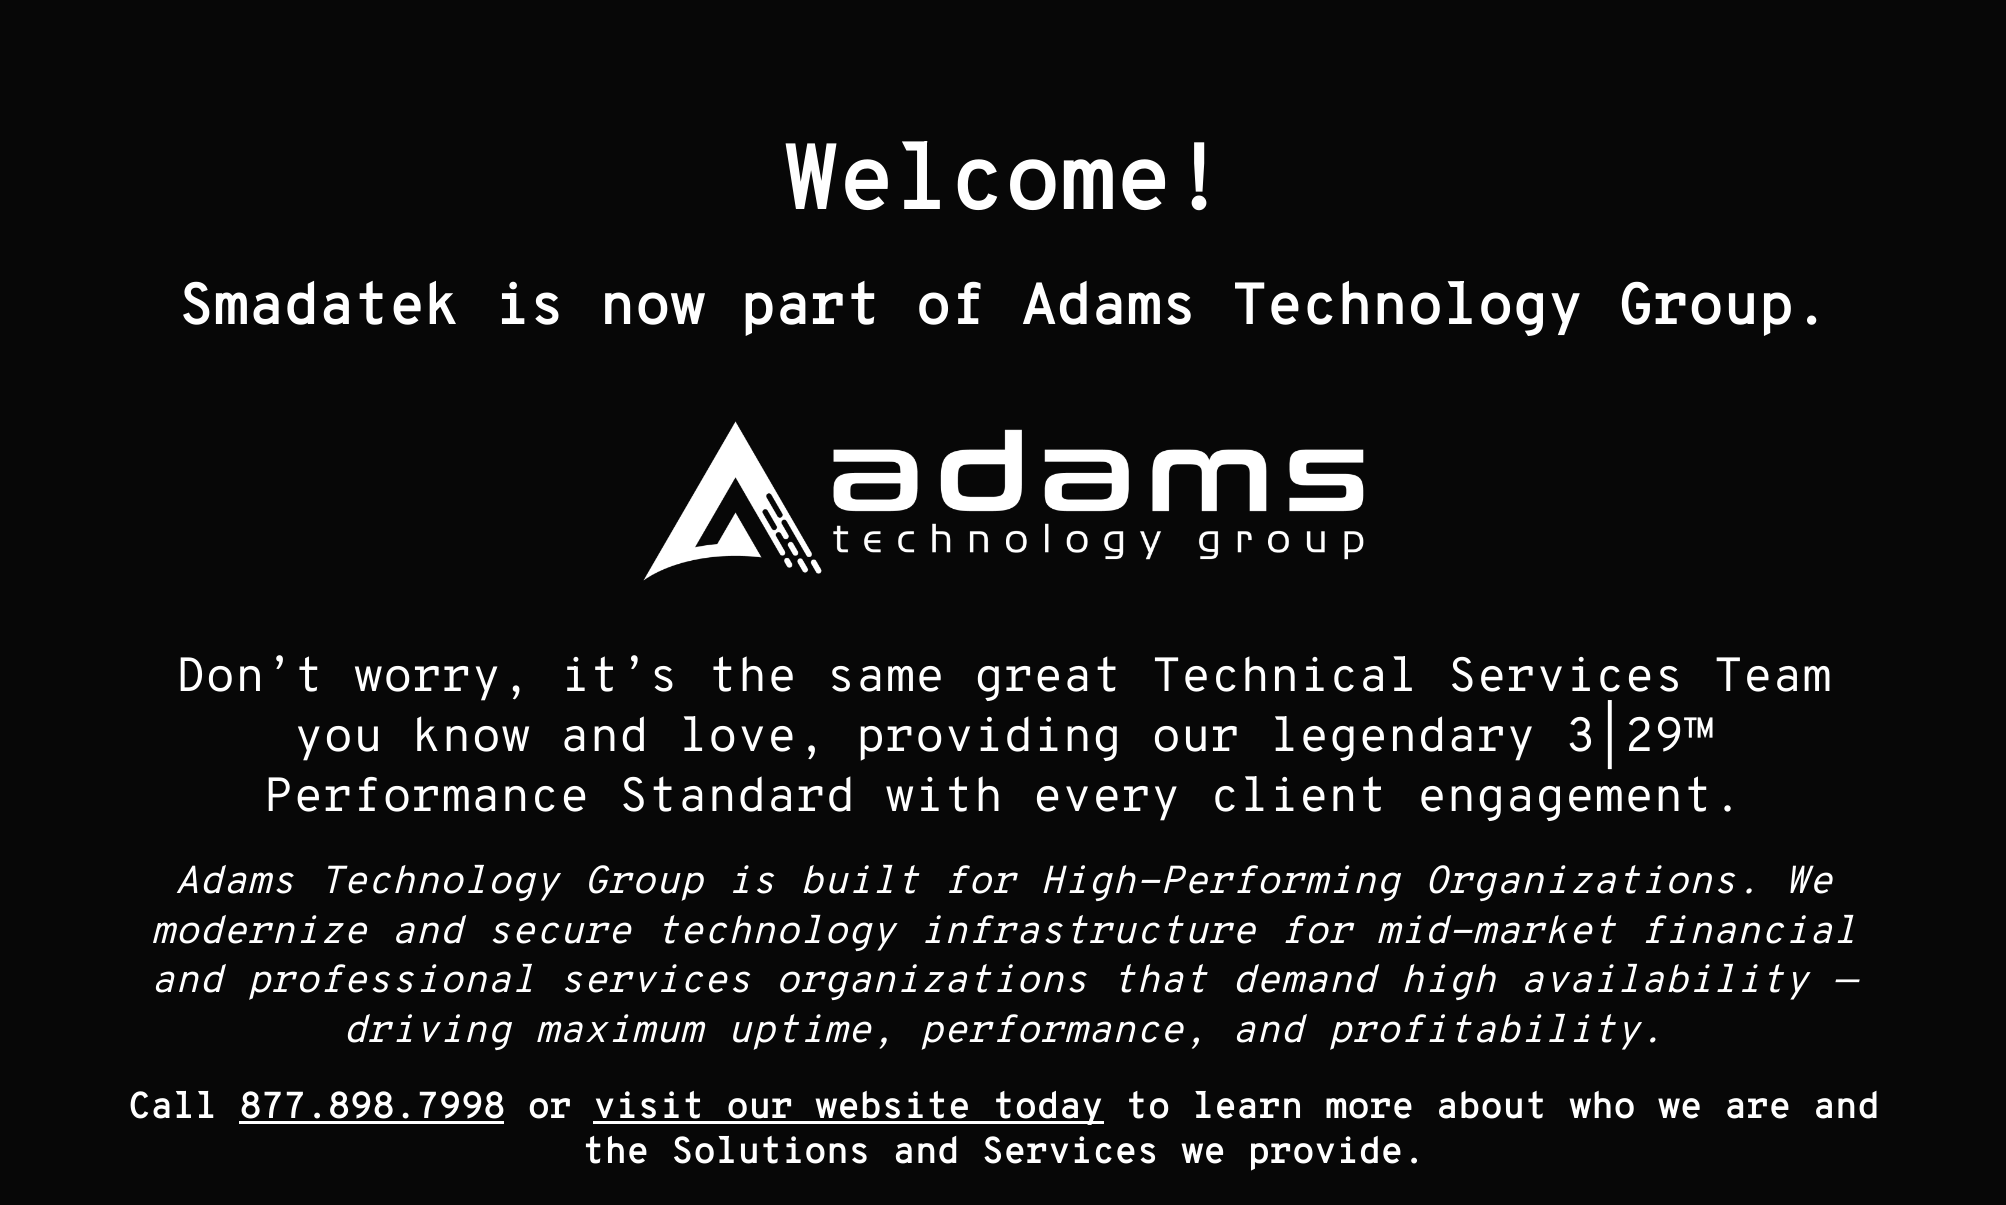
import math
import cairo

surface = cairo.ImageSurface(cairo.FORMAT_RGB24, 2006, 1205)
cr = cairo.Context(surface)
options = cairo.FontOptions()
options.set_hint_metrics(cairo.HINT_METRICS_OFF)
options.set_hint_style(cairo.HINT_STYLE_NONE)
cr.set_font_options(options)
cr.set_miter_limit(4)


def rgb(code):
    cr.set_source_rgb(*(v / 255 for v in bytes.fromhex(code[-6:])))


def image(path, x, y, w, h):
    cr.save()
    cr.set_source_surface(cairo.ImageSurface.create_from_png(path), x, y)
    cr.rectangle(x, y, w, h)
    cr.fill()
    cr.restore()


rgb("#070707")
cr.paint()
image("img/1.png", 643, 421, 721, 160)
rgb("#ffffff")
cr.rectangle(593, 1121, 511, 3)
cr.fill()
cr.rectangle(239, 1121, 265, 3)
cr.fill()
cr.select_font_face("Overpass Mono", cairo.FONT_SLANT_NORMAL, cairo.FONT_WEIGHT_BOLD)
cr.set_font_size(90)
cr.move_to(782, 209)
cr.show_text("Welcome!")
cr.set_font_size(57)
cr.move_to(178, 324)
cr.show_text("Smadatek is now part of Adams Technology Group.")
cr.select_font_face("Overpass Mono Light")
cr.set_font_size(48)
for x, y, s in [
    (176, 691, "Don’t worry, it’s the same great Technical Services Team"),
    (294, 751, "you know and love, providing our legendary 3|29™"),
    (264, 811, "Performance Standard with every client engagement."),
]:
    cr.move_to(x, y)
    cr.show_text(s)
cr.select_font_face("Overpass Mono Light", cairo.FONT_SLANT_ITALIC)
cr.set_font_size(39)
for x, y, s in [
    (175, 893, "Adams Technology Group is built for High-Performing Organizations. We"),
    (151, 943, "modernize and secure technology infrastructure for mid-market financial"),
    (151, 992, "and professional services organizations that demand high availability —"),
    (343, 1042, "driving maximum uptime, performance, and profitability."),
]:
    cr.move_to(x, y)
    cr.show_text(s)
cr.select_font_face("Overpass Mono", cairo.FONT_SLANT_NORMAL, cairo.FONT_WEIGHT_BOLD)
cr.set_font_size(36)
for x, y, s in [
    (128, 1118, "Call 877.898.7998 or"),
    (593, 1118, "visit our website today to learn more about who we are and"),
    (582, 1163, "the Solutions and Services we provide."),
]:
    cr.move_to(x, y)
    cr.show_text(s)
surface.write_to_png("page.png")
